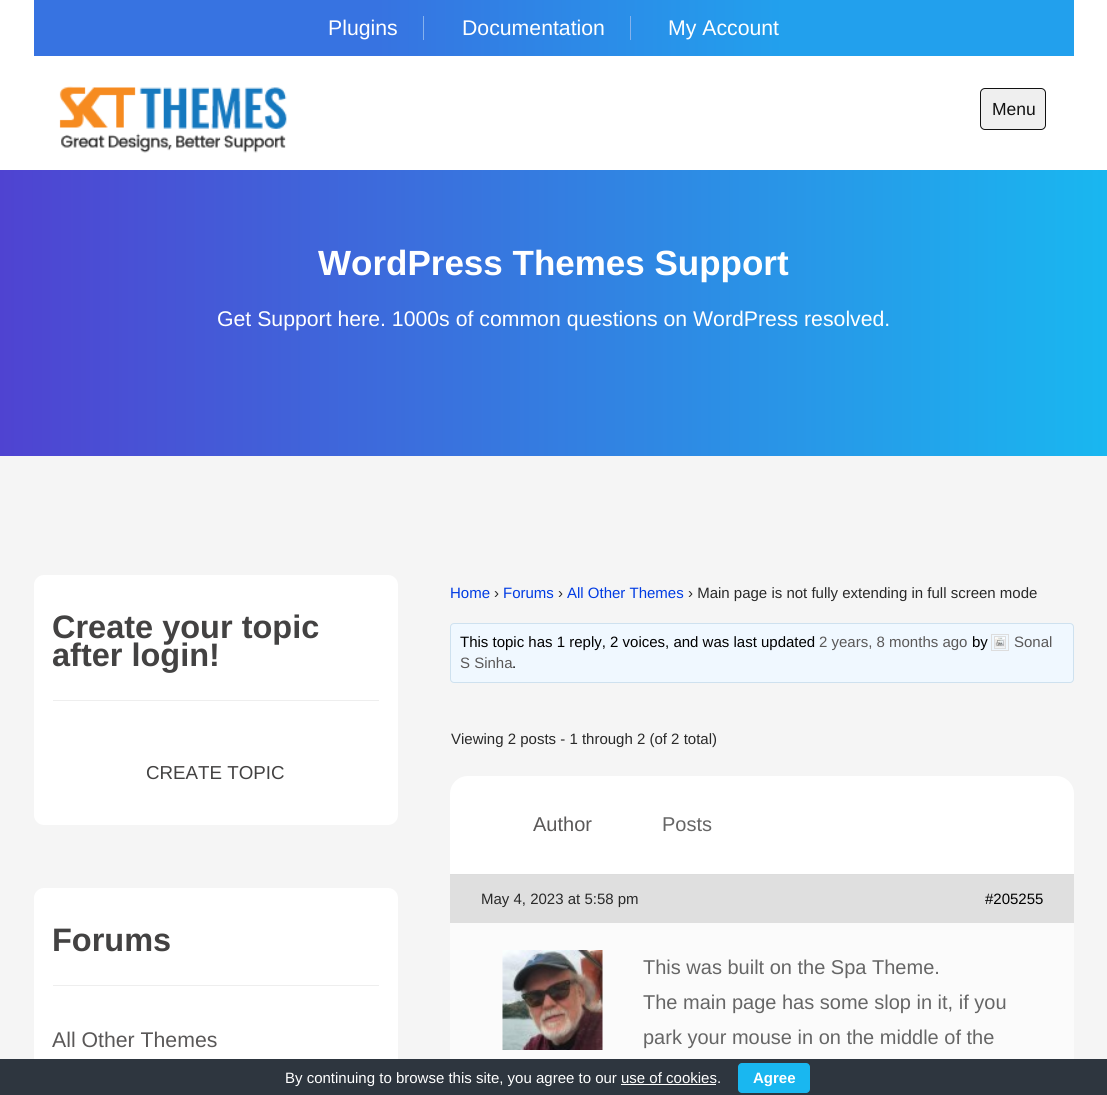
import math
import cairo

surface = cairo.ImageSurface(cairo.FORMAT_RGB24, 1107, 1095)
cr = cairo.Context(surface)
options = cairo.FontOptions()
options.set_hint_metrics(cairo.HINT_METRICS_OFF)
options.set_hint_style(cairo.HINT_STYLE_NONE)
cr.set_font_options(options)
cr.set_miter_limit(4)


def rgb(code):
    cr.set_source_rgb(*(v / 255 for v in bytes.fromhex(code[-6:])))


def rrect(x, y, w, h, r):
    cr.new_sub_path()
    for i, (u, v) in enumerate([(x + w - r, y + h - r), (x + r, y + h - r), (x + r, y + r), (x + w - r, y + r)]):
        cr.arc(u, v, r, i * math.pi / 2, (i + 1) * math.pi / 2)
    cr.close_path()


def image(path, x, y, w, h):
    cr.save()
    cr.set_source_surface(cairo.ImageSurface.create_from_png(path), x, y)
    cr.rectangle(x, y, w, h)
    cr.fill()
    cr.restore()


rgb("#ffffff")
cr.paint()
gradient = cairo.LinearGradient(34, 28, 1074, 28)
gradient.add_color_stop_rgba(0.33, 0.216, 0.451, 0.882, 1)
gradient.add_color_stop_rgba(0.72, 0.133, 0.627, 0.929, 1)
gradient.add_color_stop_rgba(0.73, 0.133, 0.627, 0.929, 1)
cr.set_source(gradient)
cr.rectangle(34, 0, 1040, 56)
cr.fill()
rgb("#85b2ed")
cr.rectangle(423, 16, 1, 24)
cr.fill()
cr.rectangle(630, 16, 1, 24)
cr.fill()
image("img/1.png", 59, 86, 228, 67)
rgb("#efefef")
rrect(980.5, 88.5, 65, 41, 4.5)
cr.fill_preserve()
rgb("#111111")
cr.set_line_width(1)
cr.stroke()
gradient = cairo.LinearGradient(0, 313, 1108, 313)
gradient.add_color_stop_rgba(0, 0.31, 0.263, 0.82, 1)
gradient.add_color_stop_rgba(1, 0.098, 0.718, 0.941, 1)
cr.set_source(gradient)
cr.rectangle(0, 170, 1107, 286)
cr.fill()
rgb("#f5f5f5")
cr.rectangle(0, 456, 1107, 603)
cr.fill()
rgb("#ffffff")
rrect(34, 575, 364, 250, 10)
cr.fill()
rgb("#eeeeee")
cr.rectangle(53, 700, 326, 1)
cr.fill()
rgb("#ffffff")
rrect(34, 888, 364, 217, 10)
cr.fill()
rgb("#eeeeee")
cr.rectangle(53, 985, 326, 1)
cr.fill()
rgb("#f0f8ff")
rrect(450.5, 623.5, 623, 59, 3.5)
cr.fill_preserve()
rgb("#cee1ef")
cr.stroke()
cr.rectangle(991.5, 634.5, 17, 16)
rgb("#dddddd")
cr.stroke()
cr.rectangle(994.5, 636.5, 11, 12)
cr.stroke()
image("img/2.png", 995, 637, 10, 11)
rgb("#ffffff")
cr.new_path()
cr.move_to(468, 776)
cr.line_to(1056, 776)
cr.curve_to(1066, 776, 1074, 784, 1074, 794)
cr.line_to(1074, 874)
cr.line_to(450, 874)
cr.line_to(450, 794)
cr.curve_to(450, 784, 458, 776, 468, 776)
cr.close_path()
cr.fill()
for x, y, w, h, color in [
    (450, 875, 624, 48, "#dfdfdf"),
    (450, 874, 624, 1, "#dddddd"),
    (450, 923, 624, 136, "#fbfbfb"),
]:
    rgb(color)
    cr.rectangle(x, y, w, h)
    cr.fill()
image("img/3.png", 502, 950, 101, 100)
rgb("#2e363f")
cr.rectangle(0, 1059, 1107, 36)
cr.fill()
rgb("#19b7f0")
rrect(738, 1063, 72, 30, 4)
cr.fill()
rgb("#ffffff")
cr.rectangle(621, 1084, 95, 1)
cr.fill()
cr.select_font_face("Liberation Sans")
cr.set_font_size(21.25)
for x, y, s in [
    (328, 35, "Plugins"),
    (462, 35, "Documentation"),
    (668, 35, "My Account"),
]:
    cr.move_to(x, y)
    cr.show_text(s)
cr.set_font_size(17.5)
rgb("#111111")
cr.move_to(992, 115)
cr.show_text("Menu")
cr.select_font_face("Liberation Sans", cairo.FONT_SLANT_NORMAL, cairo.FONT_WEIGHT_BOLD)
cr.set_font_size(35)
rgb("#ffffff")
cr.move_to(318, 275)
cr.show_text("WordPress Themes Support")
cr.select_font_face("Liberation Sans")
cr.set_font_size(21.25)
cr.move_to(217, 326)
cr.show_text("Get Support here. 1000s of common questions on WordPress resolved.")
cr.select_font_face("Liberation Sans", cairo.FONT_SLANT_NORMAL, cairo.FONT_WEIGHT_BOLD)
cr.set_font_size(32.5)
rgb("#434242")
cr.move_to(52, 638)
cr.show_text("Create your topic")
cr.move_to(52, 666)
cr.show_text("after login!")
cr.select_font_face("Liberation Sans")
cr.set_font_size(18.75)
cr.move_to(146, 779)
cr.show_text("CREATE TOPIC")
cr.select_font_face("Liberation Sans", cairo.FONT_SLANT_NORMAL, cairo.FONT_WEIGHT_BOLD)
cr.set_font_size(32.5)
cr.move_to(52, 951)
cr.show_text("Forums")
cr.select_font_face("Liberation Sans")
cr.set_font_size(21.25)
rgb("#5a5858")
cr.move_to(52, 1047)
cr.show_text("All Other Themes")
cr.set_font_size(15)
rgb("#003be3")
cr.move_to(450, 598)
cr.show_text("Home")
rgb("#292929")
cr.move_to(494, 598)
cr.show_text("›")
rgb("#003be3")
cr.move_to(503, 598)
cr.show_text("Forums")
rgb("#292929")
cr.move_to(558, 598)
cr.show_text("›")
rgb("#003be3")
cr.move_to(567, 598)
cr.show_text("All Other Themes")
rgb("#292929")
cr.move_to(688, 598)
cr.show_text("› Main page is not fully extending in full screen mode")
rgb("#000000")
cr.move_to(460, 647)
cr.show_text("This topic has 1 reply, 2 voices, and was last updated")
rgb("#5a5858")
for x, y, s in [
    (1014, 647, "Sonal"),
    (460, 668, "S Sinha"),
    (819, 647, "2 years, 8 months ago"),
]:
    cr.move_to(x, y)
    cr.show_text(s)
rgb("#000000")
cr.move_to(972, 647)
cr.show_text("by")
cr.move_to(512, 668)
cr.show_text(".")
rgb("#292929")
cr.move_to(451, 744)
cr.show_text("Viewing 2 posts - 1 through 2 (of 2 total)")
cr.set_font_size(20)
rgb("#5a5858")
cr.move_to(533, 831)
cr.show_text("Author")
rgb("#666666")
cr.move_to(662, 831)
cr.show_text("Posts")
cr.set_font_size(15)
rgb("#292929")
cr.move_to(481, 904)
cr.show_text("May 4, 2023 at 5:58 pm")
rgb("#000000")
cr.move_to(985, 904)
cr.show_text("#205255")
cr.set_font_size(20)
rgb("#666666")
for x, y, s in [
    (643, 974, "This was built on the Spa Theme."),
    (643, 1009, "The main page has some slop in it, if you"),
    (643, 1044, "park your mouse in on the middle of the"),
]:
    cr.move_to(x, y)
    cr.show_text(s)
cr.set_font_size(15)
rgb("#ffffff")
cr.move_to(285, 1083)
cr.show_text("By continuing to browse this site, you agree to our use of cookies.")
cr.select_font_face("Liberation Sans", cairo.FONT_SLANT_NORMAL, cairo.FONT_WEIGHT_BOLD)
cr.move_to(753, 1083)
cr.show_text("Agree")
surface.write_to_png("page.png")
